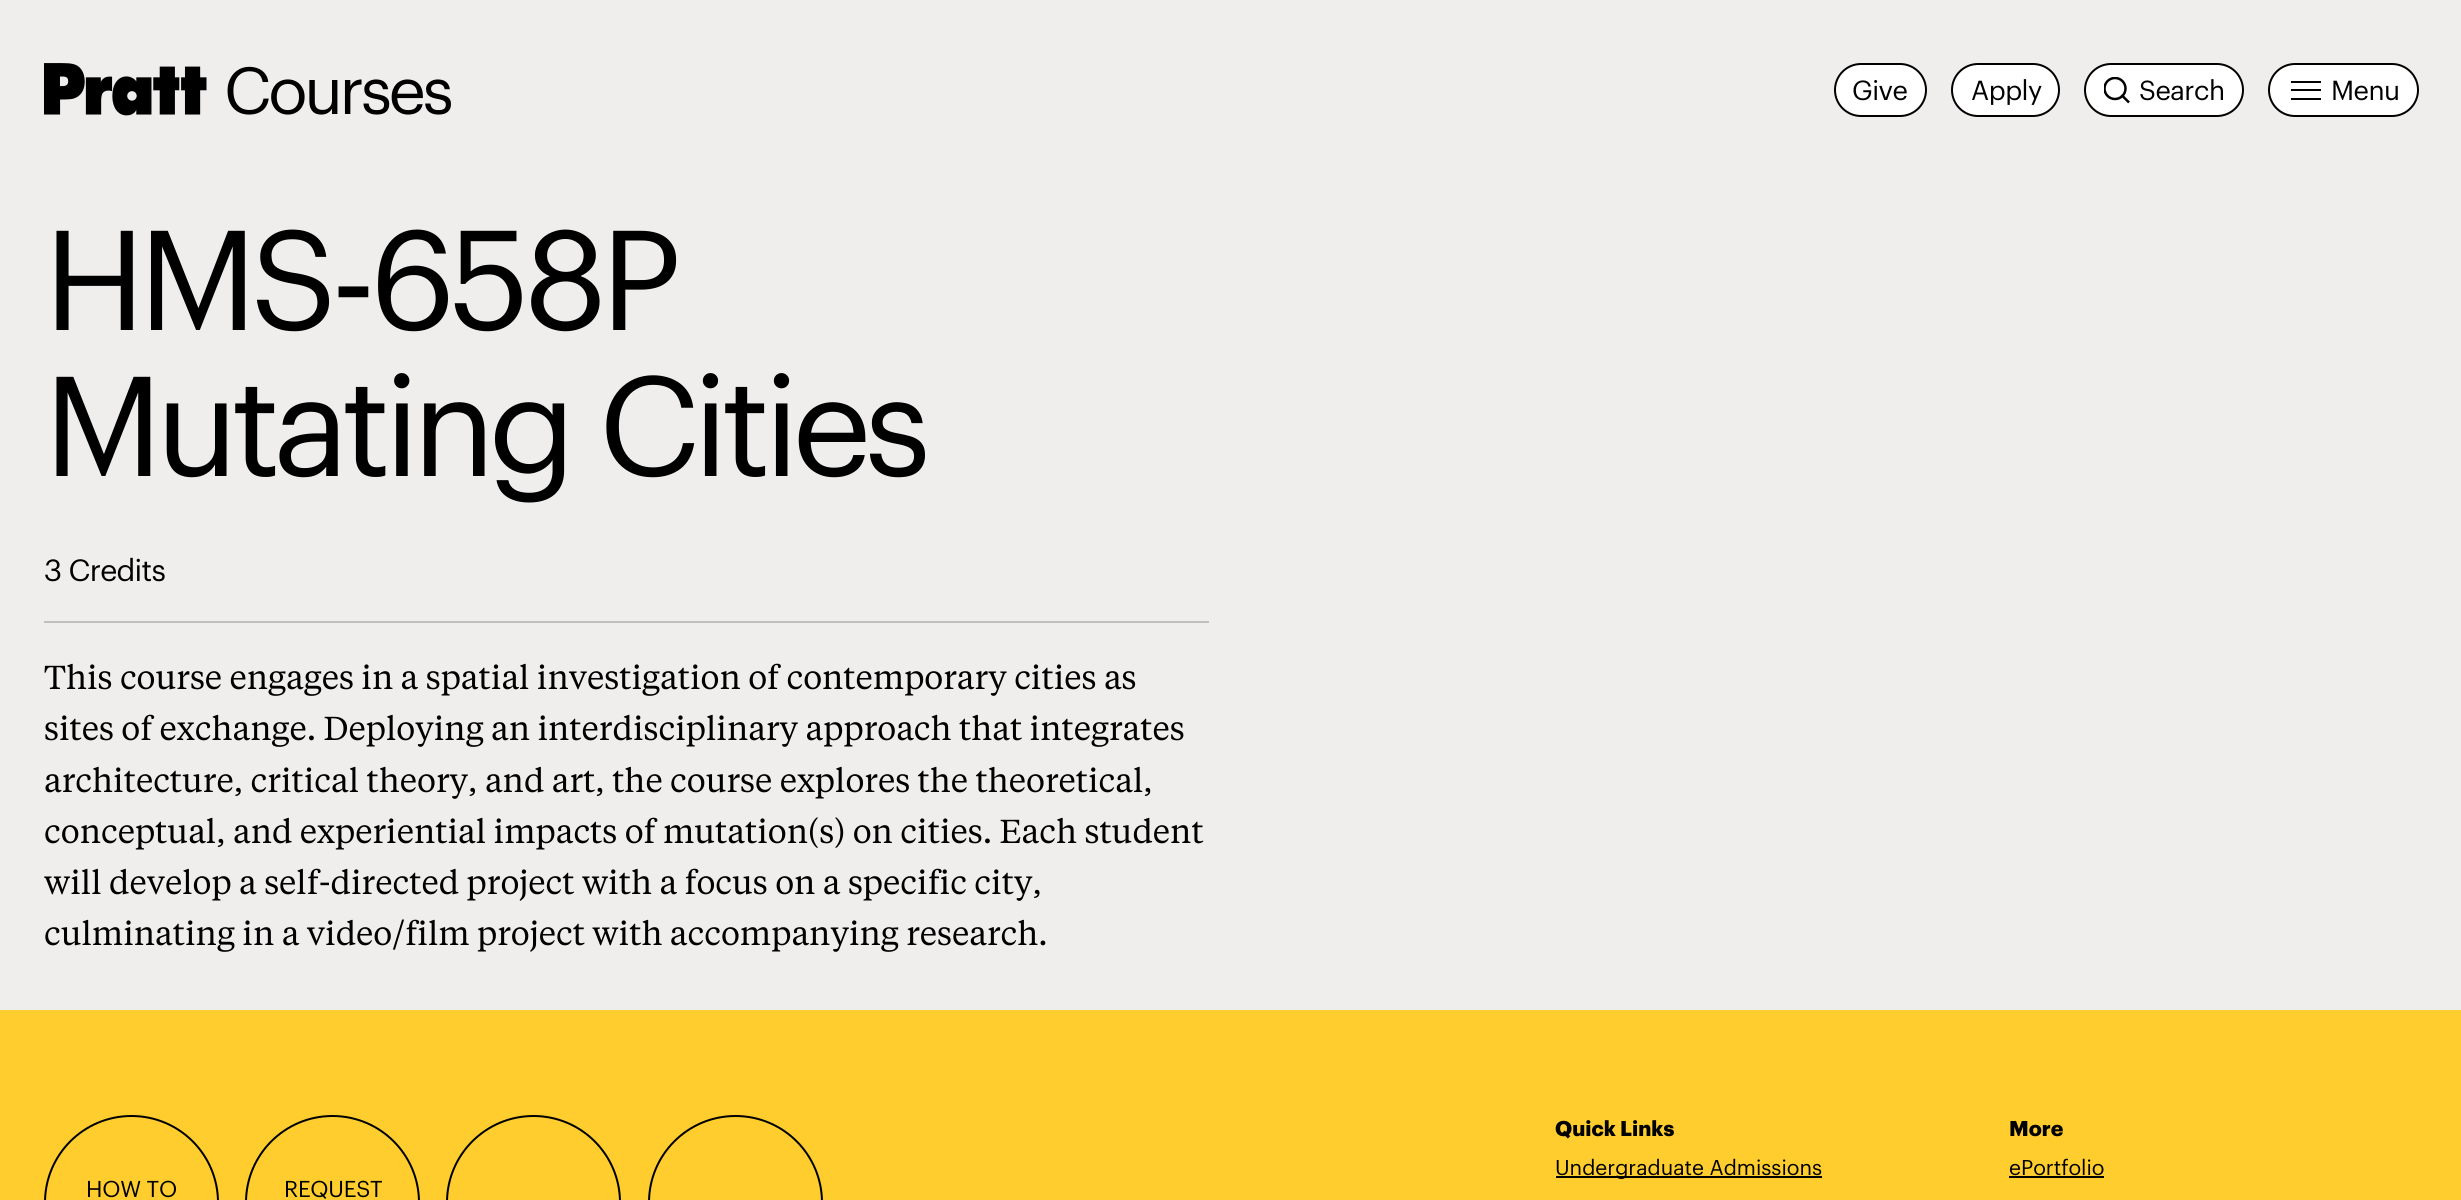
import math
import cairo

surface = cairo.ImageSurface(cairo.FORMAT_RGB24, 2461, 1200)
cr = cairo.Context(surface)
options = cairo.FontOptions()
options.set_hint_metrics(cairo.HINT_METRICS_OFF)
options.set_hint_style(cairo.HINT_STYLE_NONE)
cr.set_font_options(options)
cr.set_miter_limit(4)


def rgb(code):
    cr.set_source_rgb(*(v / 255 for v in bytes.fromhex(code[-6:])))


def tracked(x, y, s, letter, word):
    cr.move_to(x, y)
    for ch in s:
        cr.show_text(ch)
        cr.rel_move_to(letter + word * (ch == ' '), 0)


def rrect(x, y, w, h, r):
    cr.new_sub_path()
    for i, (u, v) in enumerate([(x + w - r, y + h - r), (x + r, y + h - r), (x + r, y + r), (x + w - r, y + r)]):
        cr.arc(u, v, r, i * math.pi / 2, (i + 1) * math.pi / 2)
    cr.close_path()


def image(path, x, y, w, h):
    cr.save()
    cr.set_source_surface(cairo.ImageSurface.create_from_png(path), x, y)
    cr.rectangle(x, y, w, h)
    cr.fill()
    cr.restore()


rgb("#f0eded")
cr.paint()
image("img/1.png", 44, 63, 163, 53)
rgb("#ffffff")
rrect(1835, 64, 91, 52, 26)
cr.fill_preserve()
rgb("#000000")
cr.stroke()
rgb("#ffffff")
rrect(1952, 64, 107, 52, 26)
cr.fill_preserve()
rgb("#000000")
cr.stroke()
rgb("#ffffff")
rrect(2085, 64, 158, 52, 26)
cr.fill_preserve()
rgb("#000000")
cr.stroke()
cr.save()
cr.rectangle(2104, 77, 28, 28)
cr.clip()
cr.arc(2115, 88.5, 10.5, 0, 2 * math.pi)
cr.set_line_width(2.5)
cr.stroke()
cr.restore()
cr.new_path()
cr.move_to(2121.5, 95)
cr.line_to(2129, 102.5)
cr.set_line_width(2.5)
cr.stroke()
rgb("#ffffff")
rrect(2269, 64, 149, 52, 26)
cr.fill_preserve()
rgb("#000000")
cr.set_line_width(2)
cr.stroke()
for x, y, w, h, color in [
    (2291, 89, 30, 2, "#000000"),
    (2291, 81, 30, 2, "#000000"),
    (2291, 98, 30, 2, "#000000"),
    (44, 621, 1165, 2, "#c0bebe"),
    (0, 1010, 2461, 190, "#ffce2e"),
    (1556, 1176, 266, 2, "#000000"),
    (2009, 1176, 95, 2, "#000000"),
]:
    rgb(color)
    cr.rectangle(x, y, w, h)
    cr.fill()
cr.arc(131.5, 1202.5, 86.5, 0, 2 * math.pi)
cr.stroke()
cr.arc(332.5, 1202.5, 86.5, 0, 2 * math.pi)
cr.stroke()
cr.arc(533.5, 1202.5, 86.5, 0, 2 * math.pi)
cr.stroke()
cr.arc(735.5, 1202.5, 86.5, 0, 2 * math.pi)
cr.stroke()
cr.select_font_face("Graphik")
cr.set_font_size(65)
tracked(224, 114, "Courses", -3.25, 0)
cr.set_font_size(27)
for x, y, s in [
    (1852, 100, "Give"),
    (1971, 100, "Apply"),
    (2139, 100, "Search"),
    (2331, 100, "Menu"),
]:
    tracked(x, y, s, -0.5, 0)
cr.set_font_size(138.75)
tracked(44, 330, "HMS-658P", -6.9, 0)
tracked(44, 476, "Mutating Cities", -6.9, 0)
cr.set_font_size(30)
tracked(44, 581, "3 Credits", -0.75, 0)
cr.select_font_face("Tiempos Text")
cr.set_font_size(33.05)
for x, y, s in [
    (44, 689, "This course engages in a spatial investigation of contemporary cities as"),
    (44, 740, "sites of exchange. Deploying an interdisciplinary approach that integrates"),
    (44, 792, "architecture, critical theory, and art, the course explores the theoretical,"),
    (44, 843, "conceptual, and experiential impacts of mutation(s) on cities. Each student"),
    (44, 894, "will develop a self-directed project with a focus on a specific city,"),
    (44, 945, "culminating in a video/film project with accompanying research."),
]:
    cr.move_to(x, y)
    cr.show_text(s)
cr.select_font_face("Graphik", cairo.FONT_SLANT_NORMAL, cairo.FONT_WEIGHT_BOLD)
cr.set_font_size(21)
cr.move_to(1555, 1136)
cr.show_text("Quick Links")
cr.select_font_face("Graphik")
cr.move_to(1555, 1175)
cr.show_text("Undergraduate Admissions")
cr.select_font_face("Graphik", cairo.FONT_SLANT_NORMAL, cairo.FONT_WEIGHT_BOLD)
cr.move_to(2009, 1136)
cr.show_text("More")
cr.select_font_face("Graphik")
cr.move_to(2009, 1175)
cr.show_text("ePortfolio")
cr.set_font_size(22.5)
tracked(86, 1197, "HOW TO", -0.25, 0)
tracked(284, 1197, "REQUEST", -0.25, 0)
surface.write_to_png("page.png")
